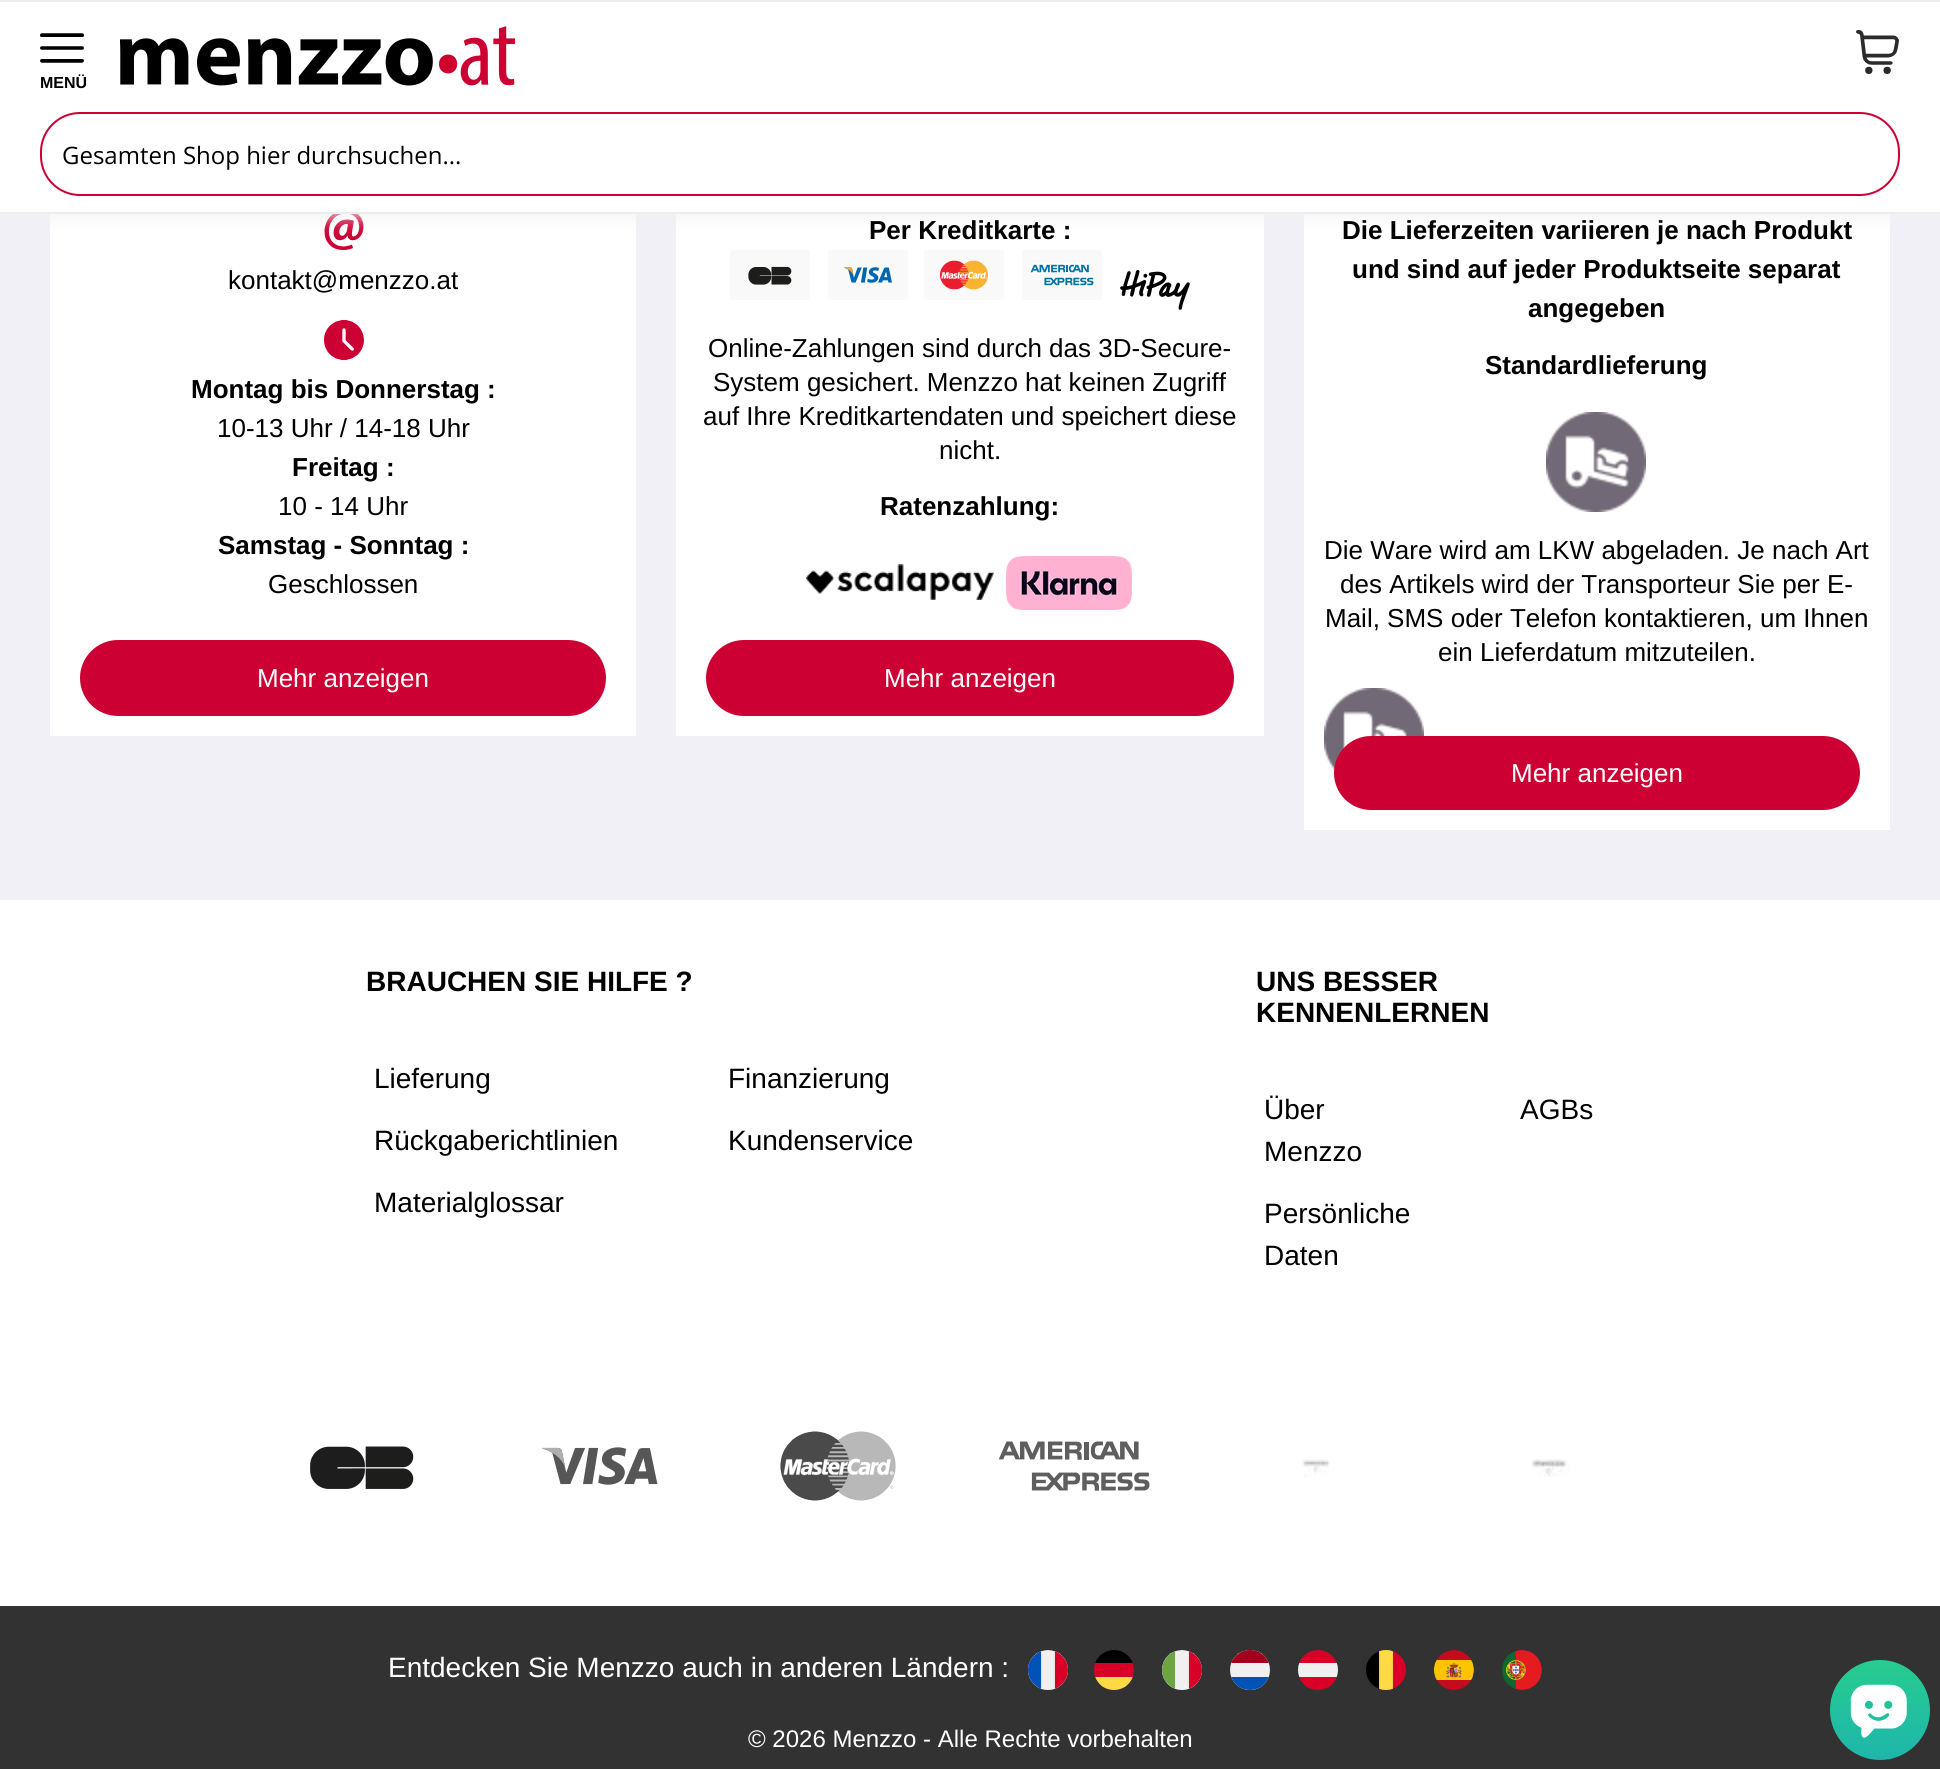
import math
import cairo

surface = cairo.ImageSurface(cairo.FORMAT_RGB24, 1940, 1769)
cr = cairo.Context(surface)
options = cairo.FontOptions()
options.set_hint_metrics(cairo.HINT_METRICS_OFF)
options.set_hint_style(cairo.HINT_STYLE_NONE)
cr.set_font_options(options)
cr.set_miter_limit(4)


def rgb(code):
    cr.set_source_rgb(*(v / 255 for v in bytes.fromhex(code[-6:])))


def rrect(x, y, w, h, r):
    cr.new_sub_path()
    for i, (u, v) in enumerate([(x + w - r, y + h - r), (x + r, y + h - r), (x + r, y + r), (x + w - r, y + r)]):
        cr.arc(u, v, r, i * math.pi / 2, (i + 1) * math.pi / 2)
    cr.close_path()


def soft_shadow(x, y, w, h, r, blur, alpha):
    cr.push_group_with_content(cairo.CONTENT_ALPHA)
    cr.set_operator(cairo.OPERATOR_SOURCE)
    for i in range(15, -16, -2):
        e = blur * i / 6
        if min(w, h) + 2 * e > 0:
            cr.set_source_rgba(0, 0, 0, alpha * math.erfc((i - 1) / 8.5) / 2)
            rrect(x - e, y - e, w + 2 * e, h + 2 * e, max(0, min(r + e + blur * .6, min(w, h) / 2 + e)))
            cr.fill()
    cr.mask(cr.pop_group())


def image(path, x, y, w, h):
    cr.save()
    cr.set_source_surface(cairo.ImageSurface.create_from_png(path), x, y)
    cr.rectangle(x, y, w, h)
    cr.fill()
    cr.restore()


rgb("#ffffff")
cr.paint()
rgb("#f1f0f6")
cr.rectangle(0, 214, 1940, 686)
cr.fill()
rgb("#ffffff")
cr.rectangle(50, 214, 586, 522)
cr.fill()
image("img/4.png", 324, 214, 40, 36)
cr.rectangle(676, 214, 588, 522)
cr.fill()
cr.rectangle(1304, 214, 586, 616)
cr.fill()
rgb("#f1f1f1")
soft_shadow(0, 2, 1940, 214, 0, 9, 1)
for x, y, w, h, color in [
    (0, 2, 1940, 210, "#ffffff"),
    (0, 0, 1940, 2, "#ededed"),
    (0, 212, 1940, 2, "#ededed"),
]:
    rgb(color)
    cr.rectangle(x, y, w, h)
    cr.fill()
image("img/1.png", 119, 26, 397, 60)
image("img/2.png", 1856, 30, 43, 44)
image("img/3.png", 40, 33, 44, 30)
rrect(41, 113, 1858, 82, 39)
rgb("#cc0033")
cr.stroke()
image("img/5.png", 324, 320, 40, 40)
rrect(80, 640, 526, 76, 38)
cr.fill()
image("img/6.png", 730, 250, 80, 50)
image("img/7.png", 828, 250, 80, 50)
image("img/8.png", 924, 250, 80, 50)
image("img/9.png", 1022, 250, 80, 50)
image("img/10.png", 1120, 270, 70, 40)
image("img/11.png", 806, 564, 188, 36)
image("img/12.png", 1006, 556, 126, 54)
rrect(706, 640, 528, 76, 38)
cr.fill()
image("img/13.png", 1546, 412, 100, 100)
image("img/14.png", 1324, 688, 100, 83)
rrect(1334, 736, 526, 74, 37)
cr.fill()
image("img/15.png", 310, 1446, 104, 43)
image("img/16.png", 542, 1447, 116, 38)
image("img/17.png", 780, 1431, 116, 70)
image("img/18.png", 998, 1441, 152, 50)
image("img/19.png", 1302, 1459, 28, 19)
image("img/20.png", 1531, 1459, 39, 18)
rgb("#333233")
cr.rectangle(0, 1606, 1940, 163)
cr.fill()
image("img/21.png", 1028, 1650, 40, 40)
image("img/22.png", 1094, 1650, 40, 40)
image("img/23.png", 1162, 1650, 40, 40)
image("img/24.png", 1230, 1650, 40, 40)
image("img/25.png", 1298, 1650, 40, 40)
image("img/26.png", 1366, 1650, 40, 40)
image("img/27.png", 1434, 1650, 40, 40)
image("img/28.png", 1502, 1650, 40, 40)
gradient = cairo.LinearGradient(1880, 1760, 1880, 1660)
gradient.add_color_stop_rgba(0, 0.118, 0.714, 0.675, 1)
gradient.add_color_stop_rgba(1, 0.153, 0.8, 0.557, 1)
cr.set_source(gradient)
cr.arc(1880, 1710, 50, 0, 2 * math.pi)
cr.fill()
image("img/29.png", 1850, 1684, 57, 54)
cr.select_font_face("Liberation Sans", cairo.FONT_SLANT_NORMAL, cairo.FONT_WEIGHT_BOLD)
cr.set_font_size(16)
rgb("#000000")
cr.move_to(40, 88)
cr.show_text("MENÜ")
cr.select_font_face("Open Sans")
cr.set_font_size(24)
cr.move_to(62, 164)
cr.show_text("Gesamten Shop hier durchsuchen...")
cr.select_font_face("Liberation Sans")
cr.set_font_size(26)
cr.move_to(228, 289)
cr.show_text("kontakt@menzzo.at")
cr.select_font_face("Liberation Sans", cairo.FONT_SLANT_NORMAL, cairo.FONT_WEIGHT_BOLD)
cr.move_to(191, 398)
cr.show_text("Montag bis Donnerstag :")
cr.select_font_face("Liberation Sans")
cr.move_to(217, 437)
cr.show_text("10-13 Uhr / 14-18 Uhr")
cr.select_font_face("Liberation Sans", cairo.FONT_SLANT_NORMAL, cairo.FONT_WEIGHT_BOLD)
cr.move_to(292, 476)
cr.show_text("Freitag :")
cr.select_font_face("Liberation Sans")
cr.move_to(278, 515)
cr.show_text("10 - 14 Uhr")
cr.select_font_face("Liberation Sans", cairo.FONT_SLANT_NORMAL, cairo.FONT_WEIGHT_BOLD)
cr.move_to(218, 554)
cr.show_text("Samstag - Sonntag :")
cr.select_font_face("Liberation Sans")
cr.move_to(268, 593)
cr.show_text("Geschlossen")
rgb("#ffffff")
cr.move_to(257, 687)
cr.show_text("Mehr anzeigen")
cr.select_font_face("Liberation Sans", cairo.FONT_SLANT_NORMAL, cairo.FONT_WEIGHT_BOLD)
rgb("#000000")
cr.move_to(869, 239)
cr.show_text("Per Kreditkarte :")
cr.select_font_face("Liberation Sans")
for x, y, s in [
    (708, 357, "Online-Zahlungen sind durch das 3D-Secure-"),
    (713, 391, "System gesichert. Menzzo hat keinen Zugriff"),
    (703, 425, "auf Ihre Kreditkartendaten und speichert diese"),
    (939, 459, "nicht."),
]:
    cr.move_to(x, y)
    cr.show_text(s)
cr.select_font_face("Liberation Sans", cairo.FONT_SLANT_NORMAL, cairo.FONT_WEIGHT_BOLD)
cr.move_to(880, 515)
cr.show_text("Ratenzahlung:")
cr.select_font_face("Liberation Sans")
rgb("#ffffff")
cr.move_to(884, 687)
cr.show_text("Mehr anzeigen")
cr.select_font_face("Liberation Sans", cairo.FONT_SLANT_NORMAL, cairo.FONT_WEIGHT_BOLD)
rgb("#000000")
for x, y, s in [
    (1342, 239, "Die Lieferzeiten variieren je nach Produkt"),
    (1352, 278, "und sind auf jeder Produktseite separat"),
    (1528, 317, "angegeben"),
    (1485, 374, "Standardlieferung"),
]:
    cr.move_to(x, y)
    cr.show_text(s)
cr.select_font_face("Liberation Sans")
for x, y, s in [
    (1324, 559, "Die Ware wird am LKW abgeladen. Je nach Art"),
    (1340, 593, "des Artikels wird der Transporteur Sie per E-"),
    (1325, 627, "Mail, SMS oder Telefon kontaktieren, um Ihnen"),
    (1438, 661, "ein Lieferdatum mitzuteilen."),
]:
    cr.move_to(x, y)
    cr.show_text(s)
rgb("#ffffff")
cr.move_to(1511, 782)
cr.show_text("Mehr anzeigen")
cr.select_font_face("Liberation Sans", cairo.FONT_SLANT_NORMAL, cairo.FONT_WEIGHT_BOLD)
cr.set_font_size(28)
rgb("#000000")
cr.move_to(366, 991)
cr.show_text("BRAUCHEN SIE HILFE ?")
cr.select_font_face("Liberation Sans")
for x, y, s in [
    (374, 1088, "Lieferung"),
    (374, 1150, "Rückgaberichtlinien"),
    (374, 1212, "Materialglossar"),
    (728, 1088, "Finanzierung"),
    (728, 1150, "Kundenservice"),
]:
    cr.move_to(x, y)
    cr.show_text(s)
cr.select_font_face("Liberation Sans", cairo.FONT_SLANT_NORMAL, cairo.FONT_WEIGHT_BOLD)
cr.move_to(1256, 991)
cr.show_text("UNS BESSER")
cr.move_to(1256, 1022)
cr.show_text("KENNENLERNEN")
cr.select_font_face("Liberation Sans")
for x, y, s in [
    (1264, 1119, "Über"),
    (1264, 1161, "Menzzo"),
    (1264, 1223, "Persönliche"),
    (1264, 1265, "Daten"),
    (1520, 1119, "AGBs"),
]:
    cr.move_to(x, y)
    cr.show_text(s)
rgb("#ffffff")
cr.move_to(388, 1677)
cr.show_text("Entdecken Sie Menzzo auch in anderen Ländern :")
cr.set_font_size(24)
cr.move_to(748, 1747)
cr.show_text("© 2026 Menzzo - Alle Rechte vorbehalten")
surface.write_to_png("page.png")
